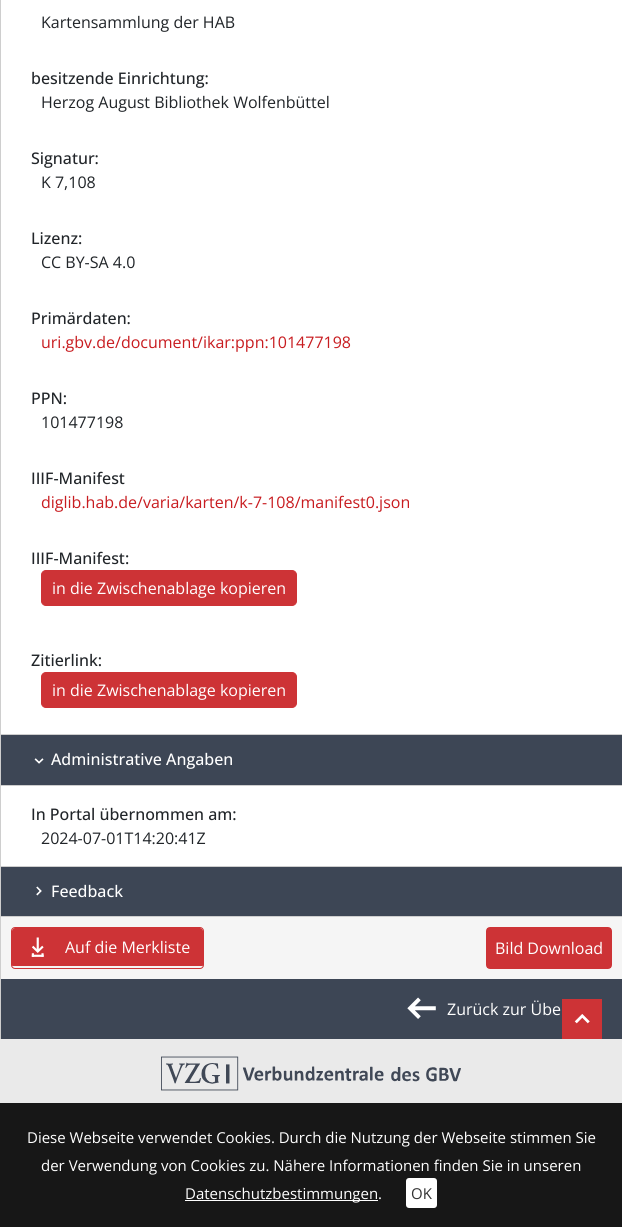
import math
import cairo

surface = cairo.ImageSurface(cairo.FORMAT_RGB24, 622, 1227)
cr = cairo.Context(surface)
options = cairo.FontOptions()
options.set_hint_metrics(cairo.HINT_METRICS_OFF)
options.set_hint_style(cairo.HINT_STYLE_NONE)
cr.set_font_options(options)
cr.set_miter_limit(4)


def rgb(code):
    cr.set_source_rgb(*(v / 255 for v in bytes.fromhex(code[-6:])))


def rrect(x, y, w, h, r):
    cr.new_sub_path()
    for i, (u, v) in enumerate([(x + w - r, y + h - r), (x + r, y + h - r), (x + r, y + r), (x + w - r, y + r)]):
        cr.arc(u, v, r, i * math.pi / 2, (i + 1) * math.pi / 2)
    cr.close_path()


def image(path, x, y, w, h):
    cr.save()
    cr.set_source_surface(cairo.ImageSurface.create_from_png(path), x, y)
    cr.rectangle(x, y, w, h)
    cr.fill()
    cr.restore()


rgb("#f5f5f5")
cr.paint()
rgb("#cecece")
cr.rectangle(0, 0, 1, 1039)
cr.fill()
rgb("#ffffff")
cr.rectangle(1, 0, 621, 866)
cr.fill()
rgb("#cd3336")
rrect(41.5, 570.5, 255, 35, 4.5)
cr.fill_preserve()
cr.set_line_width(1)
cr.stroke()
rrect(41.5, 672.5, 255, 35, 4.5)
cr.fill_preserve()
cr.stroke()
for x, y, w, h, color in [
    (1, 735, 621, 50, "#3d4655"),
    (1, 734, 621, 1, "#cecece"),
    (1, 785, 621, 1, "#cecece"),
]:
    rgb(color)
    cr.rectangle(x, y, w, h)
    cr.fill()
image("img/1.png", 34, 758, 10, 6)
for x, y, w, h, color in [
    (1, 867, 621, 49, "#3d4655"),
    (1, 866, 621, 1, "#cecece"),
    (1, 916, 621, 1, "#cecece"),
]:
    rgb(color)
    cr.rectangle(x, y, w, h)
    cr.fill()
image("img/2.png", 36, 886, 6, 10)
rrect(11.5, 927.5, 192, 41, 3.5)
rgb("#cd3336")
cr.stroke()
cr.save()
rrect(12, 928, 191, 40, 3)
cr.clip()
cr.new_path()
cr.move_to(15, 928)
cr.line_to(200, 928)
cr.curve_to(201.5, 928, 203, 929.5, 203, 931)
cr.line_to(203, 966)
cr.line_to(12, 966)
cr.line_to(12, 931)
cr.curve_to(12, 929.5, 13.5, 928, 15, 928)
cr.close_path()
cr.fill()
cr.restore()
image("img/3.png", 31, 937, 13, 20)
rrect(486.5, 927.5, 125, 41, 3.5)
cr.stroke()
cr.rectangle(487, 928, 124, 40)
cr.fill()
rgb("#3d4655")
cr.rectangle(1, 979, 621, 60)
cr.fill()
image("img/4.png", 407, 997, 29, 22)
rgb("#cd3336")
cr.rectangle(562, 999, 40, 40)
cr.fill()
image("img/5.png", 574, 1014, 16, 10)
rgb("#171717")
cr.rectangle(0, 1103, 622, 124)
cr.fill()
rgb("#ffffff")
cr.rectangle(185, 1200, 193, 1)
cr.fill()
rrect(406, 1178, 31, 30, 3)
cr.fill()
rgb("#eaeaea")
cr.rectangle(0, 1039, 622, 64)
cr.fill()
image("img/6.png", 161, 1056, 300, 35)
cr.select_font_face("Open Sans")
cr.set_font_size(16)
rgb("#212529")
cr.move_to(41, 28)
cr.show_text("Kartensammlung der HAB")
cr.select_font_face("Open Sans Medium")
cr.move_to(31, 84)
cr.show_text("besitzende Einrichtung:")
cr.select_font_face("Open Sans")
cr.move_to(41, 108)
cr.show_text("Herzog August Bibliothek Wolfenbüttel")
cr.select_font_face("Open Sans Medium")
cr.move_to(31, 164)
cr.show_text("Signatur:")
cr.select_font_face("Open Sans")
cr.move_to(41, 188)
cr.show_text("K 7,108")
cr.select_font_face("Open Sans Medium")
cr.move_to(31, 244)
cr.show_text("Lizenz:")
cr.select_font_face("Open Sans")
cr.move_to(41, 268)
cr.show_text("CC BY-SA 4.0")
cr.select_font_face("Open Sans Medium")
cr.move_to(31, 324)
cr.show_text("Primärdaten:")
cr.select_font_face("Open Sans")
rgb("#c81c20")
cr.move_to(41, 348)
cr.show_text("uri.gbv.de/document/ikar:ppn:101477198")
cr.select_font_face("Open Sans Medium")
rgb("#212529")
cr.move_to(31, 404)
cr.show_text("PPN:")
cr.select_font_face("Open Sans")
cr.move_to(41, 428)
cr.show_text("101477198")
cr.select_font_face("Open Sans Medium")
cr.move_to(31, 484)
cr.show_text("IIIF-Manifest")
cr.select_font_face("Open Sans")
rgb("#c81c20")
cr.move_to(41, 508)
cr.show_text("diglib.hab.de/varia/karten/k-7-108/manifest0.json")
cr.select_font_face("Open Sans Medium")
rgb("#212529")
cr.move_to(31, 564)
cr.show_text("IIIF-Manifest:")
cr.select_font_face("Open Sans")
rgb("#ffffff")
cr.move_to(52, 594)
cr.show_text("in die Zwischenablage kopieren")
cr.select_font_face("Open Sans Medium")
rgb("#212529")
cr.move_to(31, 666)
cr.show_text("Zitierlink:")
cr.select_font_face("Open Sans")
rgb("#ffffff")
cr.move_to(52, 696)
cr.show_text("in die Zwischenablage kopieren")
cr.select_font_face("Open Sans Medium")
cr.move_to(51, 765)
cr.show_text("Administrative Angaben")
rgb("#212529")
cr.move_to(31, 820)
cr.show_text("In Portal übernommen am:")
cr.select_font_face("Open Sans")
cr.move_to(41, 844)
cr.show_text("2024-07-01T14:20:41Z")
cr.select_font_face("Open Sans Medium")
rgb("#ffffff")
cr.move_to(51, 897)
cr.show_text("Feedback")
cr.select_font_face("Open Sans")
for x, y, s in [
    (65, 953, "Auf die Merkliste"),
    (495, 954, "Bild Download"),
    (447, 1015, "Zurück zur Übe"),
]:
    cr.move_to(x, y)
    cr.show_text(s)
cr.set_font_size(15)
for x, y, s in [
    (27, 1143, "Diese Webseite verwendet Cookies. Durch die Nutzung der Webseite stimmen Sie"),
    (41, 1171, "der Verwendung von Cookies zu. Nähere Informationen finden Sie in unseren"),
    (185, 1199, "Datenschutzbestimmungen."),
]:
    cr.move_to(x, y)
    cr.show_text(s)
rgb("#333333")
cr.move_to(411, 1199)
cr.show_text("OK")
surface.write_to_png("page.png")
